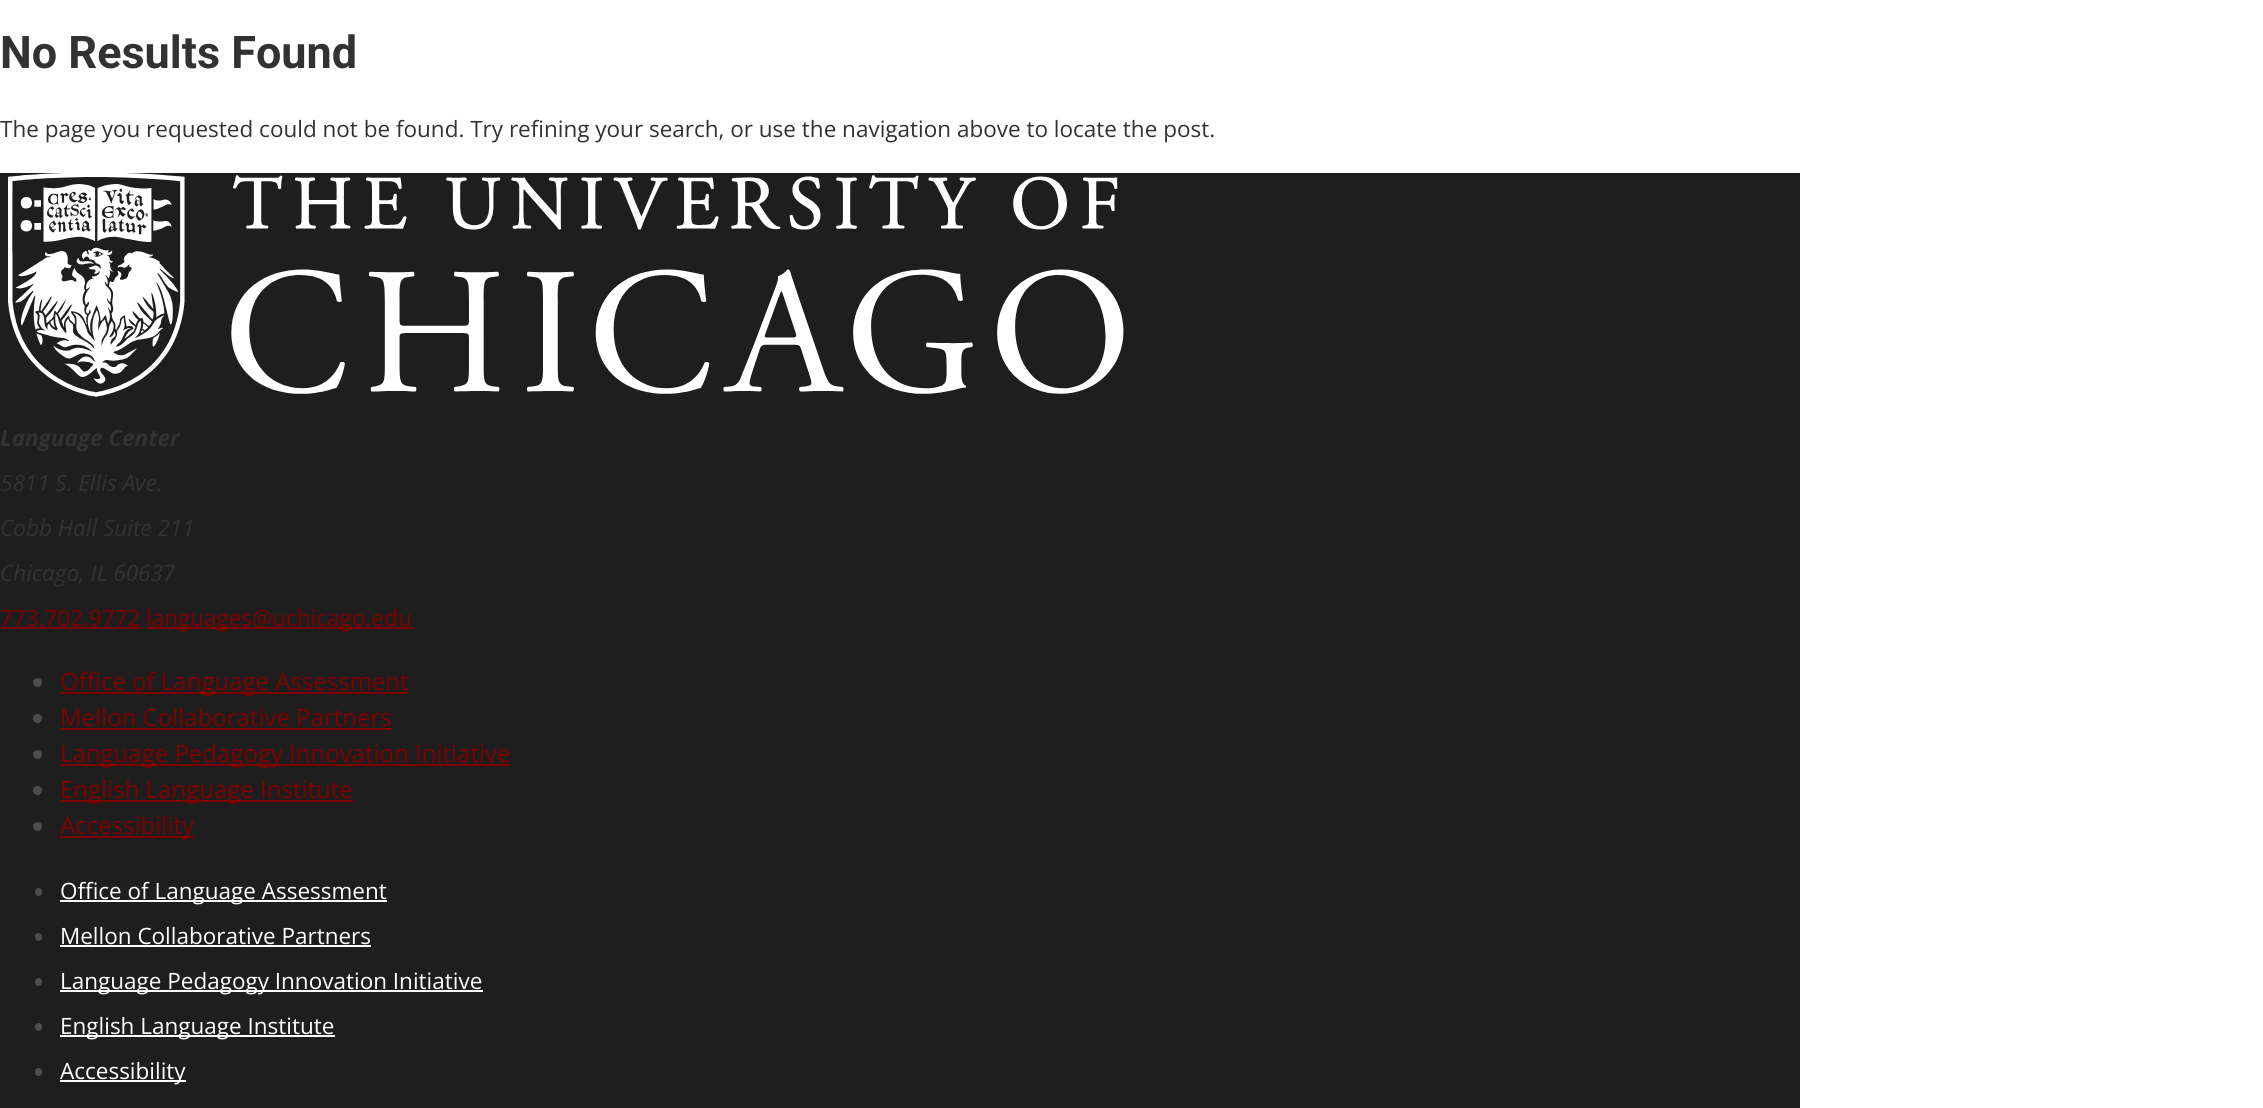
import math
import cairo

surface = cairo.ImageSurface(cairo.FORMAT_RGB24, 2263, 1108)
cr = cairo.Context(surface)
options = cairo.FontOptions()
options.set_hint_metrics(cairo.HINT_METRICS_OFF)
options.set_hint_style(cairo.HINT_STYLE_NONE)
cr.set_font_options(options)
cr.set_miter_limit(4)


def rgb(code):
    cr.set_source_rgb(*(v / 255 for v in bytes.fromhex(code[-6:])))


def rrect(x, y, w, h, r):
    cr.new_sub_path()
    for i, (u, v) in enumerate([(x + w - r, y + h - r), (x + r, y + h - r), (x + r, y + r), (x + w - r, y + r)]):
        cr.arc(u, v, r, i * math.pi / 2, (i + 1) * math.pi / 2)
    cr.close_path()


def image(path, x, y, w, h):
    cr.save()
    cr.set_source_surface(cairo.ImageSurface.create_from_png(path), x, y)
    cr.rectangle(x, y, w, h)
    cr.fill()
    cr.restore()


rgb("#ffffff")
cr.paint()
rgb("#1e1e1e")
cr.rectangle(0, 173, 1800, 935)
cr.fill()
image("img/1.png", 8, 173, 1116, 224)
rgb("#800000")
cr.rectangle(0, 627, 141, 2)
cr.fill()
cr.rectangle(147, 627, 266, 2)
cr.fill()
rgb("#4d4d4d")
cr.arc(37.5, 682.5, 4.5, 0, 2 * math.pi)
cr.fill()
rgb("#800000")
cr.rectangle(60, 692, 348, 2)
cr.fill()
rgb("#4d4d4d")
cr.arc(37.5, 718.5, 4.5, 0, 2 * math.pi)
cr.fill()
rgb("#800000")
cr.rectangle(60, 728, 332, 2)
cr.fill()
rgb("#4d4d4d")
cr.arc(37.5, 754.5, 4.5, 0, 2 * math.pi)
cr.fill()
rgb("#800000")
cr.rectangle(60, 764, 450, 2)
cr.fill()
rgb("#4d4d4d")
cr.arc(37.5, 790.5, 4.5, 0, 2 * math.pi)
cr.fill()
rgb("#800000")
cr.rectangle(60, 800, 293, 2)
cr.fill()
rgb("#4d4d4d")
cr.arc(37.5, 826.5, 4.5, 0, 2 * math.pi)
cr.fill()
rgb("#800000")
cr.rectangle(60, 836, 134, 2)
cr.fill()
rgb("#4d4d4d")
rrect(35, 888, 7, 8, 3.5)
cr.fill()
rgb("#ffffff")
cr.rectangle(60, 900, 327, 2)
cr.fill()
rgb("#4d4d4d")
rrect(35, 933, 7, 8, 3.5)
cr.fill()
rgb("#ffffff")
cr.rectangle(60, 945, 311, 2)
cr.fill()
rgb("#4d4d4d")
rrect(35, 978, 7, 8, 3.5)
cr.fill()
rgb("#ffffff")
cr.rectangle(60, 990, 423, 2)
cr.fill()
rgb("#4d4d4d")
rrect(35, 1023, 7, 8, 3.5)
cr.fill()
rgb("#ffffff")
cr.rectangle(60, 1035, 275, 2)
cr.fill()
rgb("#4d4d4d")
rrect(35, 1068, 7, 8, 3.5)
cr.fill()
rgb("#ffffff")
cr.rectangle(60, 1080, 126, 2)
cr.fill()
cr.select_font_face("Roboto", cairo.FONT_SLANT_NORMAL, cairo.FONT_WEIGHT_BOLD)
cr.set_font_size(45)
rgb("#323232")
cr.move_to(0, 68)
cr.show_text("No Results Found")
cr.select_font_face("Open Sans")
cr.set_font_size(22.5)
cr.move_to(0, 137)
cr.show_text("The page you requested could not be found. Try refining your search, or use the navigation above to locate the post.")
cr.select_font_face("Open Sans", cairo.FONT_SLANT_ITALIC, cairo.FONT_WEIGHT_BOLD)
cr.move_to(0, 446)
cr.show_text("Language Center")
cr.select_font_face("Open Sans", cairo.FONT_SLANT_ITALIC)
for x, y, s in [
    (0, 491, "5811 S. Ellis Ave."),
    (0, 536, "Cobb Hall Suite 211"),
    (0, 581, "Chicago, IL 60637"),
]:
    cr.move_to(x, y)
    cr.show_text(s)
cr.select_font_face("Open Sans")
rgb("#800000")
cr.move_to(0, 626)
cr.show_text("773.702.9772")
cr.move_to(146, 626)
cr.show_text("languages@uchicago.edu")
cr.set_font_size(24)
for x, y, s in [
    (60, 690, "Office of Language Assessment"),
    (60, 726, "Mellon Collaborative Partners"),
    (60, 762, "Language Pedagogy Innovation Initiative"),
    (60, 798, "English Language Institute"),
    (60, 834, "Accessibility"),
]:
    cr.move_to(x, y)
    cr.show_text(s)
cr.set_font_size(22.5)
rgb("#ffffff")
for x, y, s in [
    (60, 899, "Office of Language Assessment"),
    (60, 944, "Mellon Collaborative Partners"),
    (60, 989, "Language Pedagogy Innovation Initiative"),
    (60, 1034, "English Language Institute"),
    (60, 1079, "Accessibility"),
]:
    cr.move_to(x, y)
    cr.show_text(s)
surface.write_to_png("page.png")
